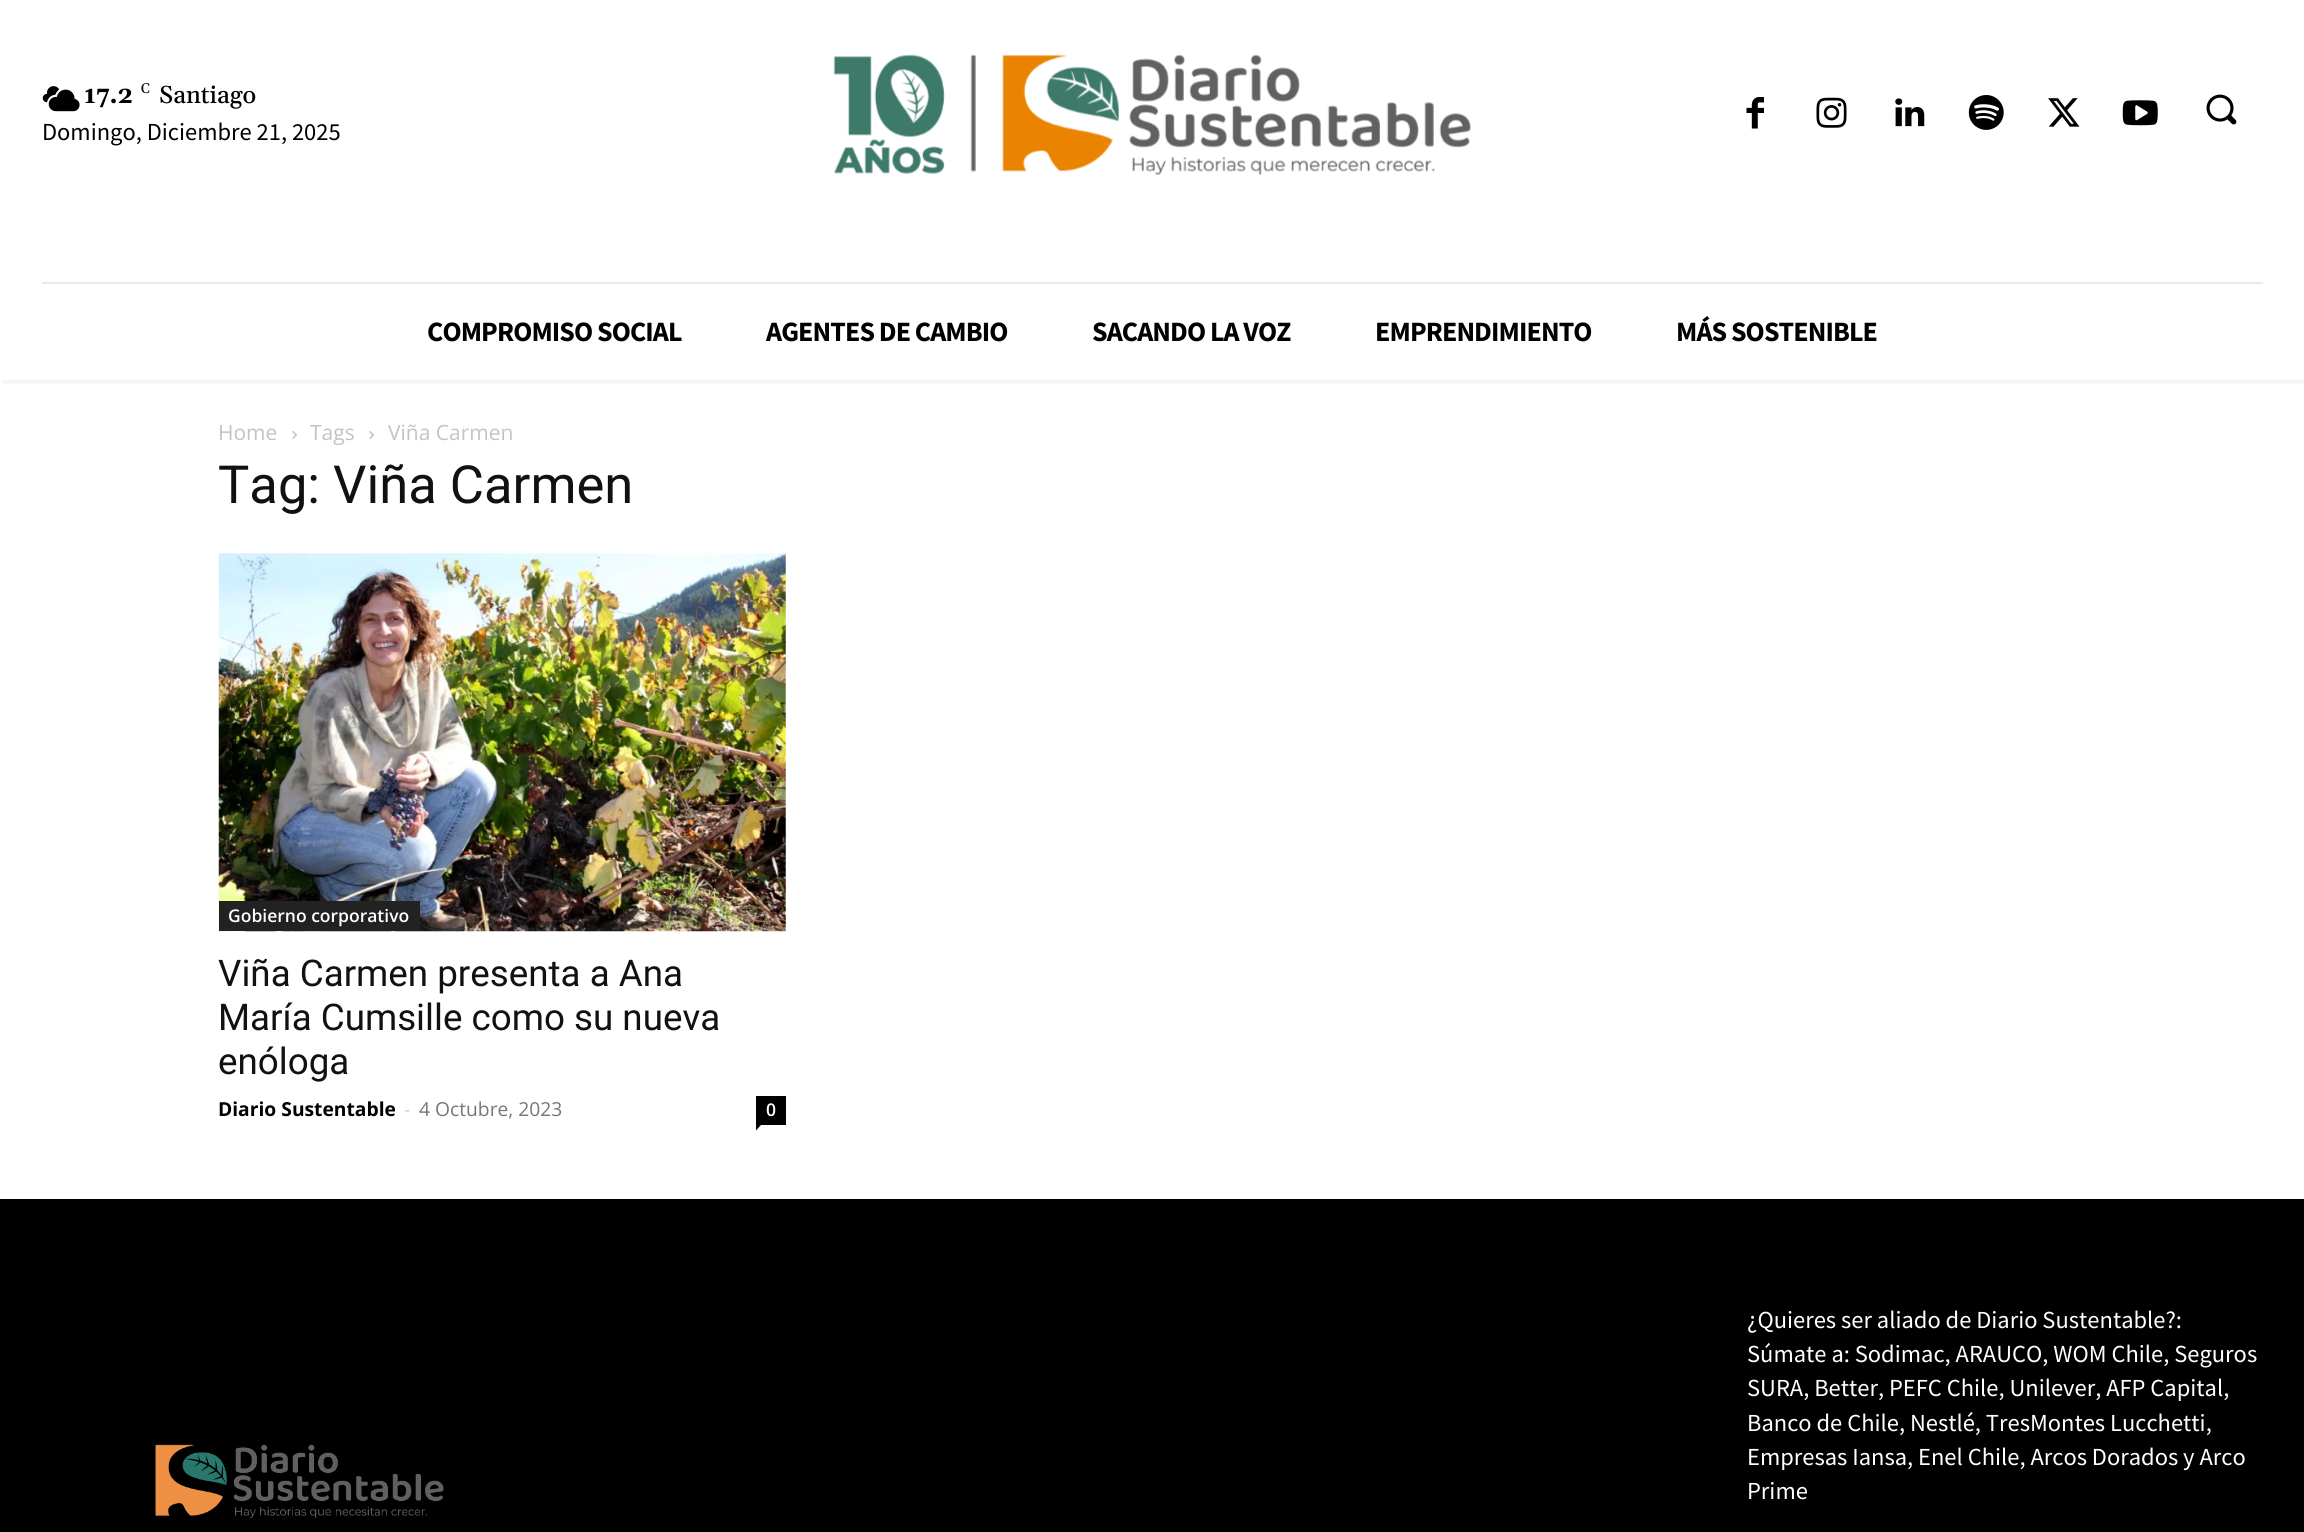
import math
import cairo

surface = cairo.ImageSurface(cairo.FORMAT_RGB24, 2304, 1532)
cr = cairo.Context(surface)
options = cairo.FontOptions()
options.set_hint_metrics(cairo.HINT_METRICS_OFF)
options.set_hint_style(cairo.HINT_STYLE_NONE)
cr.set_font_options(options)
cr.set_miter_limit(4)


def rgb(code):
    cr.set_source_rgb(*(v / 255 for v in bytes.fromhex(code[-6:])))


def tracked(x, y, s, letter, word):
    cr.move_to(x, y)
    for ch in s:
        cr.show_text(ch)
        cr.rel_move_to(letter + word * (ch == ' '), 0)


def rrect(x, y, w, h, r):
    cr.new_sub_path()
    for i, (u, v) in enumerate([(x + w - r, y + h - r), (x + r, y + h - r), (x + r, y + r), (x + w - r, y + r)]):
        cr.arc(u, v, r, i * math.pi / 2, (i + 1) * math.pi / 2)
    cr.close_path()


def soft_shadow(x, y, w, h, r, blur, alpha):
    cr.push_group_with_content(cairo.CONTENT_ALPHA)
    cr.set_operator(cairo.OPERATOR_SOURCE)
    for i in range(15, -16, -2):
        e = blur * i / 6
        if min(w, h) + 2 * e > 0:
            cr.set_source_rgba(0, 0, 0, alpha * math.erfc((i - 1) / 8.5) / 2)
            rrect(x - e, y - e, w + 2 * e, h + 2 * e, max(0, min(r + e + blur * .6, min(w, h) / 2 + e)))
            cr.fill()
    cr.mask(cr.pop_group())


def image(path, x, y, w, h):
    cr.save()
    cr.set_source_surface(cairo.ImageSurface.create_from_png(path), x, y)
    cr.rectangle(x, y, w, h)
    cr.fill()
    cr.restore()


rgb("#ffffff")
cr.paint()
image("img/1.png", 42, 86, 38, 26)
image("img/2.png", 833, 54, 638, 121)
image("img/3.png", 1746, 97, 18, 32)
image("img/4.png", 1816, 97, 31, 31)
image("img/5.png", 1895, 98, 30, 29)
image("img/6.png", 1968, 95, 36, 35)
image("img/7.png", 2048, 98, 32, 29)
image("img/8.png", 2122, 100, 36, 26)
image("img/9.png", 2206, 94, 31, 31)
rgb("#eaeaea")
cr.rectangle(42, 282, 2221, 2)
cr.fill()
cr.save()
cr.rectangle(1, 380, 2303, 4)
cr.clip()
rgb("#000000")
soft_shadow(2, 233, 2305, 150, 0, 3.5, 0.06)
cr.restore()
image("img/10.png", 292, 431, 5, 8)
image("img/10.png", 369, 431, 5, 8)
image("img/11.png", 218, 553, 568, 379)
rgb("#222222")
cr.rectangle(219, 901, 201, 30)
cr.fill()
rgb("#000000")
cr.rectangle(756, 1096, 30, 29)
cr.fill()
cr.new_path()
cr.move_to(756, 1125)
cr.line_to(761, 1125)
cr.line_to(756, 1130.5)
cr.close_path()
cr.fill()
cr.rectangle(0, 1199, 2304, 333)
cr.fill()
image("img/12.png", 155, 1444, 289, 74)
cr.select_font_face("Gelasio", cairo.FONT_SLANT_NORMAL, cairo.FONT_WEIGHT_BOLD)
cr.set_font_size(24.5)
cr.move_to(84, 103)
cr.show_text("17.2")
cr.select_font_face("Gelasio")
cr.set_font_size(14)
cr.move_to(141, 93)
cr.show_text("C")
cr.select_font_face("Gelasio Medium")
cr.set_font_size(24.5)
cr.move_to(159, 103)
cr.show_text("Santiago")
cr.select_font_face("Source Sans Pro")
cr.move_to(42, 140)
cr.show_text("Domingo, Diciembre 21, 2025")
cr.select_font_face("Source Sans Pro", cairo.FONT_SLANT_NORMAL, cairo.FONT_WEIGHT_BOLD)
cr.set_font_size(28)
for x, y, s in [
    (427, 341, "COMPROMISO SOCIAL"),
    (766, 341, "AGENTES DE CAMBIO"),
    (1092, 341, "SACANDO LA VOZ"),
    (1375, 341, "EMPRENDIMIENTO"),
    (1676, 341, "MÁS SOSTENIBLE"),
]:
    tracked(x, y, s, -0.9, 0)
cr.select_font_face("Open Sans")
cr.set_font_size(21)
rgb("#c3c3c3")
for x, y, s in [
    (218, 440, "Home"),
    (310, 440, "Tags"),
    (388, 440, "Viña Carmen"),
]:
    cr.move_to(x, y)
    cr.show_text(s)
cr.select_font_face("Roboto")
cr.set_font_size(52.5)
rgb("#111111")
cr.move_to(218, 503)
cr.show_text("Tag: Viña Carmen")
cr.select_font_face("Open Sans SemiBold")
cr.set_font_size(17.5)
rgb("#ffffff")
cr.move_to(228, 922)
cr.show_text("Gobierno corporativo")
cr.select_font_face("Roboto")
cr.set_font_size(36.75)
rgb("#111111")
for x, y, s in [
    (218, 986, "Viña Carmen presenta a Ana"),
    (218, 1030, "María Cumsille como su nueva"),
    (218, 1074, "enóloga"),
]:
    cr.move_to(x, y)
    cr.show_text(s)
cr.select_font_face("Open Sans", cairo.FONT_SLANT_NORMAL, cairo.FONT_WEIGHT_BOLD)
cr.set_font_size(19.25)
rgb("#000000")
cr.move_to(218, 1116)
cr.show_text("Diario Sustentable")
cr.select_font_face("Open Sans")
rgb("#cccccc")
cr.move_to(404, 1116)
cr.show_text("-")
rgb("#767676")
cr.move_to(419, 1116)
cr.show_text("4 Octubre, 2023")
cr.select_font_face("Open Sans SemiBold")
cr.set_font_size(17.5)
rgb("#ffffff")
cr.move_to(766, 1116)
cr.show_text("0")
cr.select_font_face("Source Sans Pro")
cr.set_font_size(24.5)
for x, y, s in [
    (1747, 1328, "¿Quieres ser aliado de Diario Sustentable?:"),
    (1747, 1362, "Súmate a: Sodimac, ARAUCO, WOM Chile, Seguros"),
    (1747, 1396, "SURA, Better, PEFC Chile, Unilever, AFP Capital,"),
    (1747, 1431, "Banco de Chile, Nestlé, TresMontes Lucchetti,"),
    (1747, 1465, "Empresas Iansa, Enel Chile, Arcos Dorados y Arco"),
    (1747, 1499, "Prime"),
]:
    cr.move_to(x, y)
    cr.show_text(s)
surface.write_to_png("page.png")
